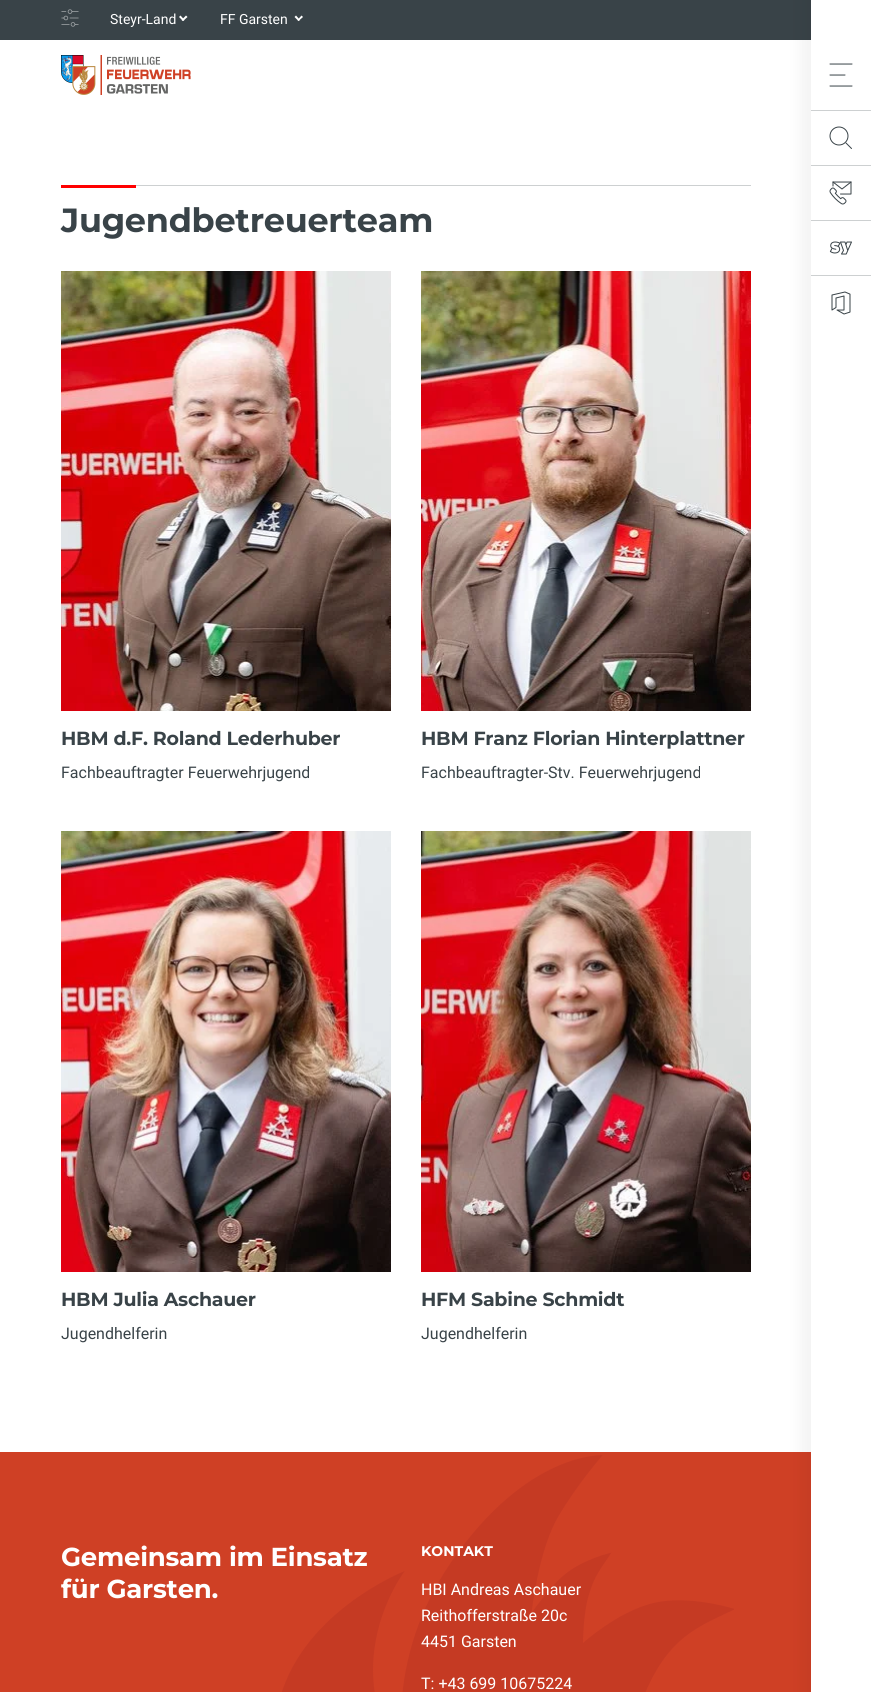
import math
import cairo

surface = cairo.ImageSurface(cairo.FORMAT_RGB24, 871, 1692)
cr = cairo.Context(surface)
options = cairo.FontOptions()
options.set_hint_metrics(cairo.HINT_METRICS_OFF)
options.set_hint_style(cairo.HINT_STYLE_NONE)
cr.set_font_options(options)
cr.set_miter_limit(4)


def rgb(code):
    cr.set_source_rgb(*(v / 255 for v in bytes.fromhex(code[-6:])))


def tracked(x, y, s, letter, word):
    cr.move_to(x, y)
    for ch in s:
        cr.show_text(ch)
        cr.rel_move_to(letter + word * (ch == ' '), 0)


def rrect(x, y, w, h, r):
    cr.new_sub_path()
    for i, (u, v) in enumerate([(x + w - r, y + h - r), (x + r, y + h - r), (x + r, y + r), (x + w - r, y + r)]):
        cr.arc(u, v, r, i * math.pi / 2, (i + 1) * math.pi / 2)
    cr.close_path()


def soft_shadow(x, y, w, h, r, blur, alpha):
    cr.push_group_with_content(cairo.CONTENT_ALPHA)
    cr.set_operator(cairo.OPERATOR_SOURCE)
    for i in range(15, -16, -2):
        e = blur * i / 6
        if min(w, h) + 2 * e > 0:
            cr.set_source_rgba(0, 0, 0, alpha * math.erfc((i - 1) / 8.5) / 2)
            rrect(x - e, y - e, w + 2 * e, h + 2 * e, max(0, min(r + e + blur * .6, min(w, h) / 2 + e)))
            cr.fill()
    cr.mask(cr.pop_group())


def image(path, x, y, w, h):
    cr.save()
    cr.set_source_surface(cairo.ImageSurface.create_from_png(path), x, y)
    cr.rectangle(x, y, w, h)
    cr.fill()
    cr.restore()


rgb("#ffffff")
cr.paint()
rgb("#394348")
cr.rectangle(0, 0, 811, 40)
cr.fill()
image("img/1.png", 61, 9, 18, 18)
rgb("#ffffff")
cr.new_path()
cr.move_to(186, 15.5)
cr.line_to(187.5, 17)
cr.line_to(183, 21)
cr.line_to(181.5, 20)
cr.close_path()
cr.fill()
cr.new_path()
cr.move_to(180.5, 15.5)
cr.line_to(184.5, 20)
cr.line_to(183, 21)
cr.line_to(179, 17)
cr.close_path()
cr.fill()
cr.new_path()
cr.move_to(301.5, 15.5)
cr.line_to(303, 17)
cr.line_to(298.5, 21)
cr.line_to(297.5, 20)
cr.close_path()
cr.fill()
cr.new_path()
cr.move_to(296, 15.5)
cr.line_to(300, 20)
cr.line_to(298.5, 21)
cr.line_to(294.5, 17)
cr.close_path()
cr.fill()
rgb("#cf4025")
cr.rectangle(0, 1452, 811, 240)
cr.fill()
rgb("#000000")
soft_shadow(801, -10, 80, 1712, 0, 7.5, 0.05)
rgb("#ffffff")
cr.rectangle(811, 0, 60, 1692)
cr.fill()
rgb("#cdd0d1")
cr.rectangle(811, 110, 60, 1)
cr.fill()
cr.arc(839, 136, 9, 0, 2 * math.pi)
rgb("#394348")
cr.set_line_width(1)
cr.stroke()
cr.new_path()
cr.move_to(846, 143)
cr.line_to(851.5, 148.5)
cr.set_line_cap(cairo.LINE_CAP_ROUND)
cr.set_line_join(cairo.LINE_JOIN_ROUND)
cr.stroke()
rgb("#cdd0d1")
cr.rectangle(811, 165, 60, 1)
cr.fill()
image("img/2.png", 829, 181, 23, 24)
cr.rectangle(811, 220, 60, 1)
cr.fill()
image("img/3.png", 829, 241, 23, 14)
cr.rectangle(811, 275, 60, 1)
cr.fill()
image("img/4.png", 831, 291, 20, 24)
image("img/5.png", 61, 55, 130, 40)
cr.new_path()
cr.move_to(830, 75)
cr.line_to(845, 75)
cr.move_to(830, 64)
cr.line_to(852, 64)
cr.move_to(830, 86)
cr.line_to(852, 86)
rgb("#394348")
cr.stroke()
rgb("#cdd0d1")
cr.rectangle(136, 185, 615, 1)
cr.fill()
rgb("#ff0000")
cr.rectangle(61, 185, 75, 3)
cr.fill()
image("img/6.png", 61, 271, 330, 440)
image("img/7.png", 421, 271, 330, 440)
image("img/8.png", 61, 831, 330, 441)
image("img/9.png", 421, 831, 330, 441)
image("img/10.png", 282, 1455, 452, 237)
cr.select_font_face("Roboto")
cr.set_font_size(14)
rgb("#ffffff")
cr.move_to(110, 24)
cr.show_text("Steyr-Land")
cr.move_to(220, 24)
cr.show_text("FF Garsten")
cr.select_font_face("Montserrat Thin")
cr.set_font_size(33.5)
rgb("#394348")
tracked(61, 232, "Jugendbetreuerteam", -0.25, 0)
cr.set_font_size(19)
tracked(61, 745, "HBM d.F. Roland Lederhuber", -0.25, 0)
cr.select_font_face("Roboto")
cr.set_font_size(16)
cr.move_to(61, 778)
cr.show_text("Fachbeauftragter Feuerwehrjugend")
cr.select_font_face("Montserrat Thin")
cr.set_font_size(19)
tracked(421, 745, "HBM Franz Florian Hinterplattner", -0.25, 0)
cr.select_font_face("Roboto")
cr.set_font_size(16)
cr.move_to(421, 778)
cr.show_text("Fachbeauftragter-Stv. Feuerwehrjugend")
cr.select_font_face("Montserrat Thin")
cr.set_font_size(19)
tracked(61, 1306, "HBM Julia Aschauer", -0.25, 0)
cr.select_font_face("Roboto")
cr.set_font_size(16)
cr.move_to(61, 1339)
cr.show_text("Jugendhelferin")
cr.select_font_face("Montserrat Thin")
cr.set_font_size(19)
tracked(421, 1306, "HFM Sabine Schmidt", -0.25, 0)
cr.select_font_face("Roboto")
cr.set_font_size(16)
cr.move_to(421, 1339)
cr.show_text("Jugendhelferin")
cr.select_font_face("Montserrat Thin")
cr.set_font_size(26)
rgb("#ffffff")
tracked(61, 1566, "Gemeinsam im Einsatz", -0.25, 0)
tracked(61, 1598, "für Garsten.", -0.25, 0)
cr.set_font_size(14)
cr.move_to(421, 1556)
cr.show_text("KONTAKT")
cr.select_font_face("Roboto")
cr.set_font_size(16)
for x, y, s in [
    (421, 1595, "HBI Andreas Aschauer"),
    (421, 1621, "Reithofferstraße 20c"),
    (421, 1647, "4451 Garsten"),
    (421, 1689, "T: +43 699 10675224"),
]:
    cr.move_to(x, y)
    cr.show_text(s)
surface.write_to_png("page.png")
